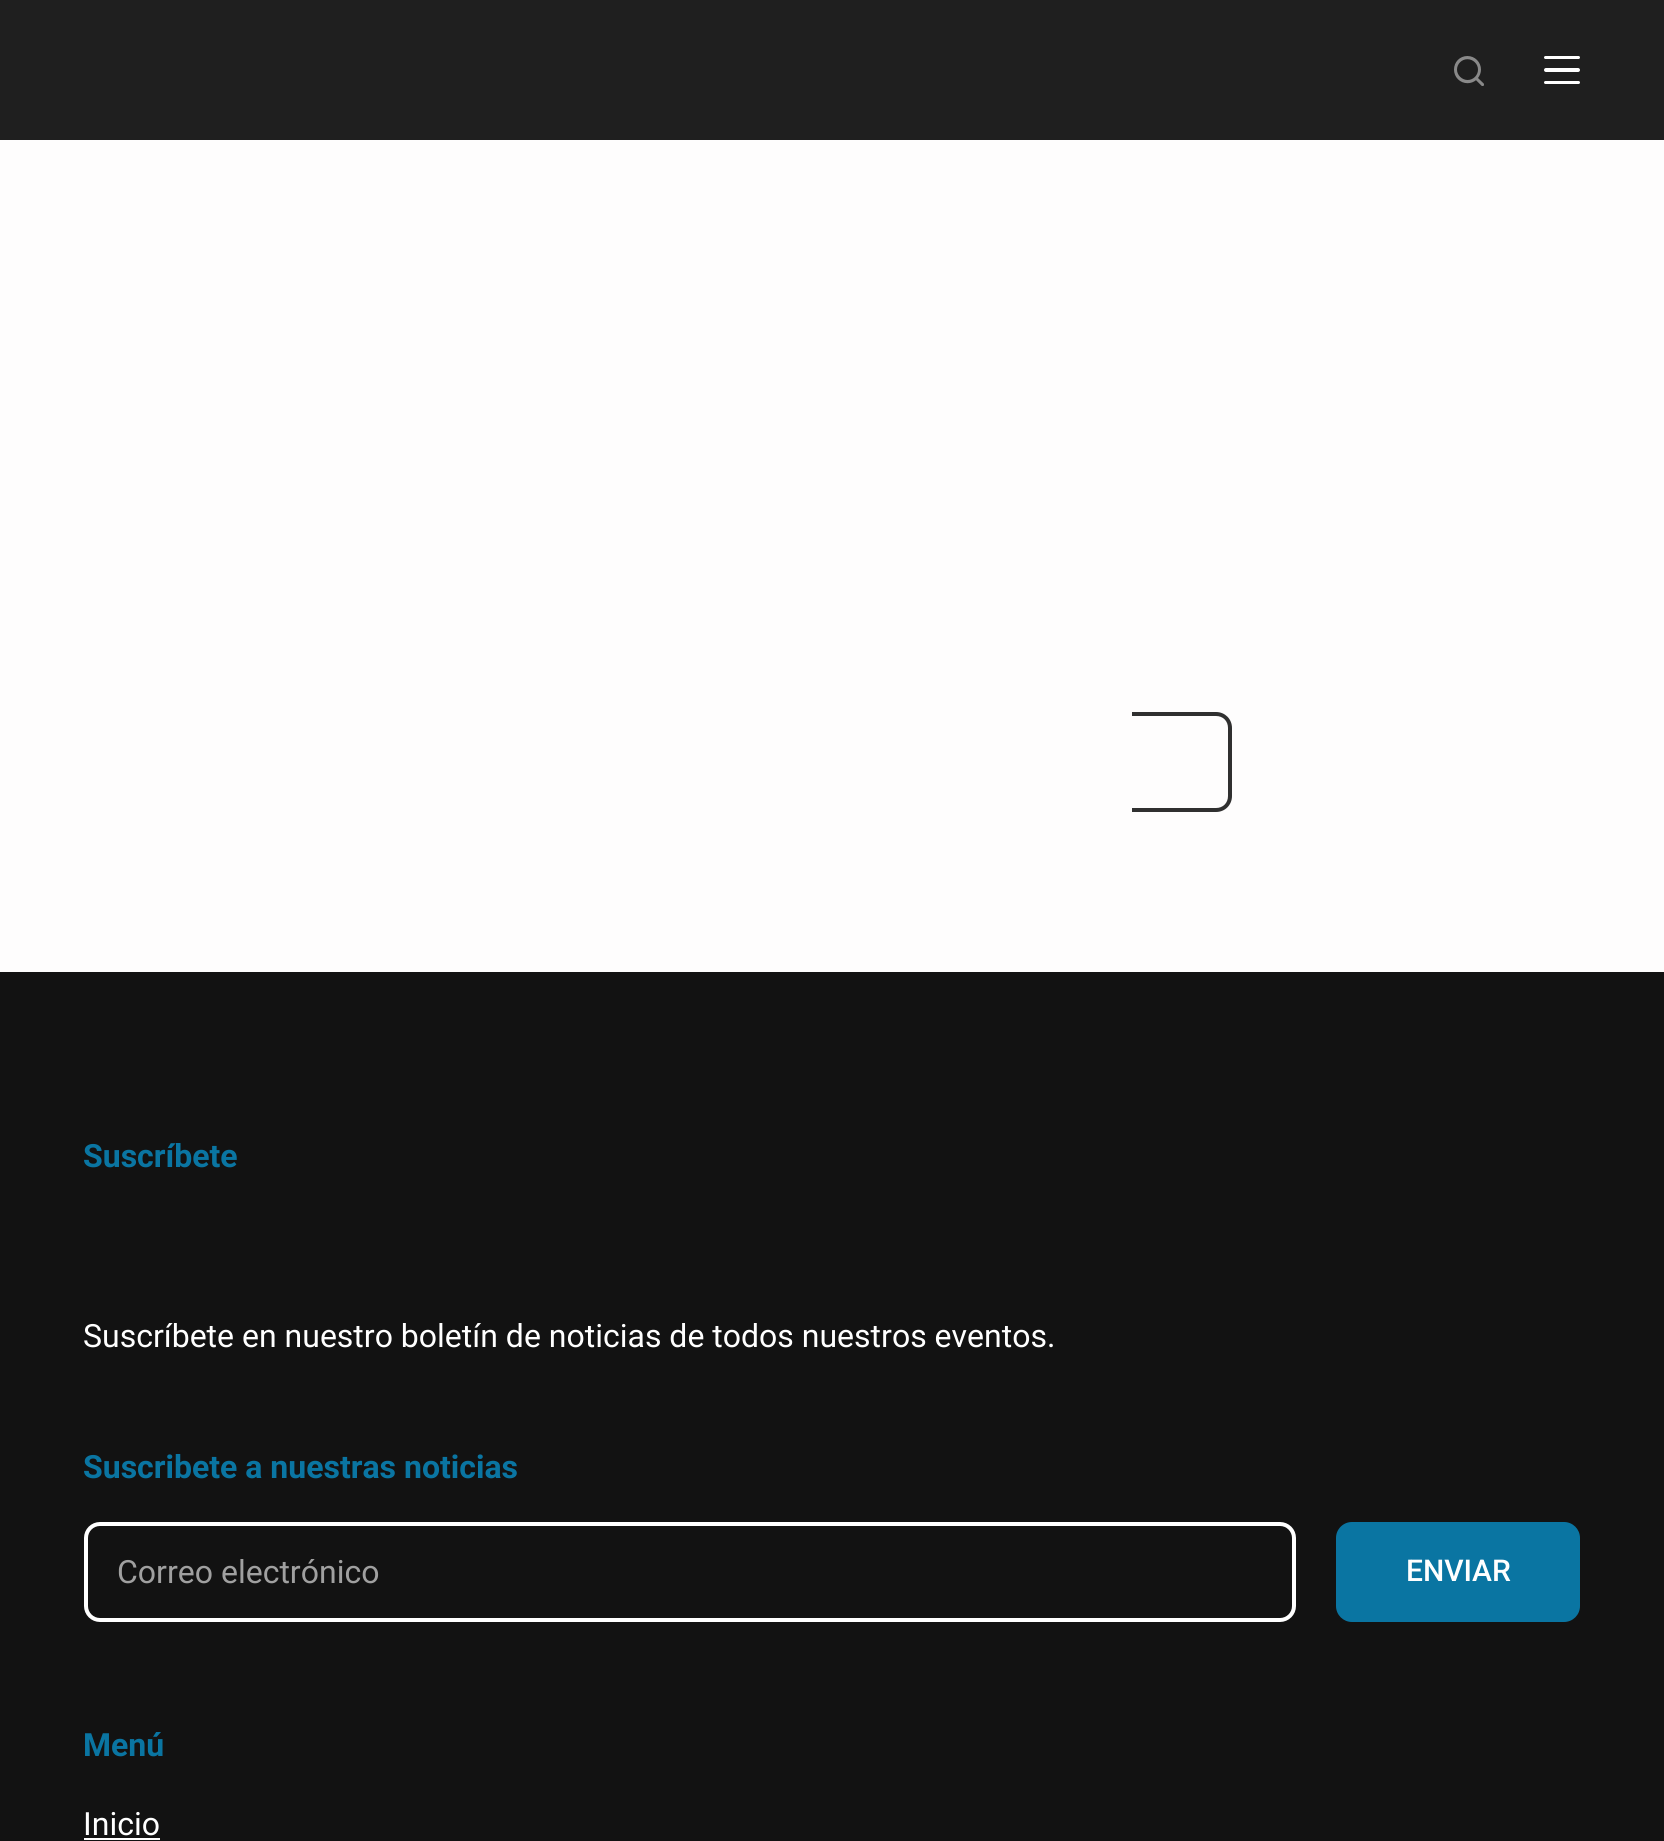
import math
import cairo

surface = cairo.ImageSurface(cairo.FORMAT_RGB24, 1664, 1841)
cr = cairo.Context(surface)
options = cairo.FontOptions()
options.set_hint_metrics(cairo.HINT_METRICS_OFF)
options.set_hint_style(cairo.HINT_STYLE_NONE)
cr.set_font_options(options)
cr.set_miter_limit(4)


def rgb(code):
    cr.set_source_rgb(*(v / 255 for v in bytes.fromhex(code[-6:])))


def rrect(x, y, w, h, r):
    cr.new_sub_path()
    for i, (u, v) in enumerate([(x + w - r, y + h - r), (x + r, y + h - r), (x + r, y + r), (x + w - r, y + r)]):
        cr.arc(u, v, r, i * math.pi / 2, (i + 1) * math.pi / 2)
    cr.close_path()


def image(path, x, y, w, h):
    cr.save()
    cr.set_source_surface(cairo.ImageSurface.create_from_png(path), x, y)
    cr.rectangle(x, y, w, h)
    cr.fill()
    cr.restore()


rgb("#fefdfd")
cr.paint()
rgb("#1f1f1f")
cr.rectangle(0, 0, 1664, 140)
cr.fill()
image("img/1.png", 1454, 56, 30, 30)
rgb("#ffffff")
rrect(1544, 56, 36, 3, 1.5)
cr.fill()
rrect(1544, 68, 36, 4, 2)
cr.fill()
rrect(1544, 81, 36, 3, 1.5)
cr.fill()
rgb("#303030")
cr.set_fill_rule(cairo.FILL_RULE_EVEN_ODD)
cr.new_path()
cr.move_to(1132, 712)
cr.line_to(1216, 712)
cr.curve_to(1225, 712, 1232, 719, 1232, 728)
cr.line_to(1232, 796)
cr.curve_to(1232, 805, 1225, 812, 1216, 812)
cr.line_to(1132, 812)
cr.close_path()
cr.move_to(1132, 716)
cr.line_to(1216, 716)
cr.curve_to(1223, 716, 1228, 721, 1228, 728)
cr.line_to(1228, 796)
cr.curve_to(1228, 803, 1223, 808, 1216, 808)
cr.line_to(1132, 808)
cr.close_path()
cr.fill()
rgb("#121212")
cr.rectangle(0, 972, 1664, 869)
cr.fill()
rrect(86, 1524, 1208, 96, 14)
rgb("#ffffff")
cr.set_line_width(4)
cr.stroke()
rgb("#0a75a2")
rrect(1336, 1522, 244, 100, 16)
cr.fill()
rgb("#ffffff")
cr.rectangle(84, 1838, 76, 2)
cr.fill()
cr.select_font_face("Roboto", cairo.FONT_SLANT_NORMAL, cairo.FONT_WEIGHT_BOLD)
cr.set_font_size(32)
rgb("#0a75a2")
cr.move_to(83, 1167)
cr.show_text("Suscríbete")
cr.select_font_face("Roboto")
rgb("#ffffff")
cr.move_to(83, 1347)
cr.show_text("Suscríbete en nuestro boletín de noticias de todos nuestros eventos.")
cr.select_font_face("Roboto", cairo.FONT_SLANT_NORMAL, cairo.FONT_WEIGHT_BOLD)
rgb("#0a75a2")
cr.move_to(83, 1478)
cr.show_text("Suscribete a nuestras noticias")
cr.select_font_face("Roboto")
rgb("#a0a0a0")
cr.move_to(117, 1583)
cr.show_text("Correo electrónico")
cr.select_font_face("Roboto Medium")
cr.set_font_size(30)
rgb("#ffffff")
cr.move_to(1406, 1581)
cr.show_text("ENVIAR")
cr.select_font_face("Roboto", cairo.FONT_SLANT_NORMAL, cairo.FONT_WEIGHT_BOLD)
cr.set_font_size(32)
rgb("#0a75a2")
cr.move_to(83, 1756)
cr.show_text("Menú")
cr.select_font_face("Roboto")
rgb("#ffffff")
cr.move_to(83, 1835)
cr.show_text("Inicio")
surface.write_to_png("page.png")
